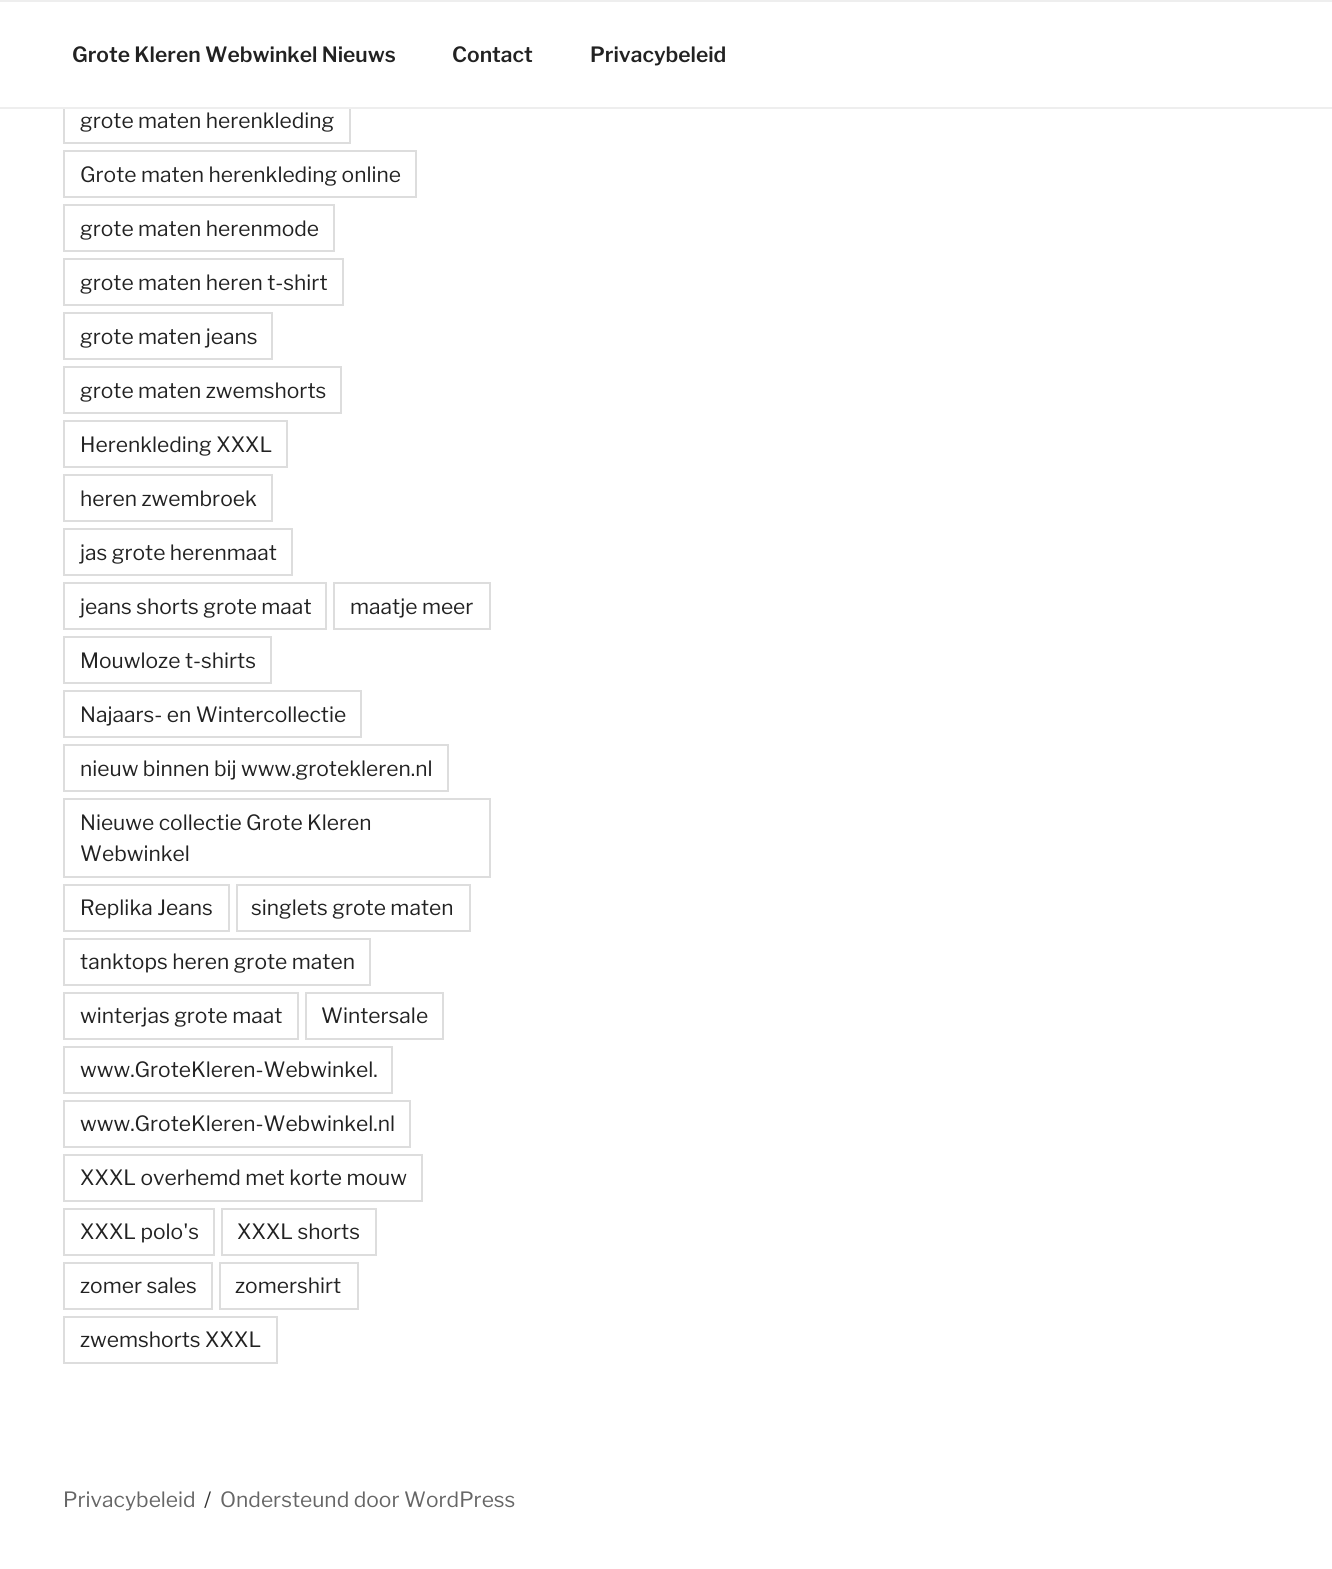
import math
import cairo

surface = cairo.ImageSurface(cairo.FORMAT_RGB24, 1332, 1569)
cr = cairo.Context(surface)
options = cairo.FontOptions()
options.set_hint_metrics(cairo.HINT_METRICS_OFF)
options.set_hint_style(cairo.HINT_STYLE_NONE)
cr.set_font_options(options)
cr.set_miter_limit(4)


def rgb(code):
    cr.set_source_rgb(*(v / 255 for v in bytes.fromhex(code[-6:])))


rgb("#ffffff")
cr.paint()
cr.rectangle(64, 97, 286, 46)
rgb("#dddddd")
cr.stroke()
for x, y, w, h, color in [
    (63, 96, 288, 11, "#ffffff"),
    (0, 0, 1332, 2, "#eeeeee"),
    (0, 107, 1332, 2, "#eeeeee"),
]:
    rgb(color)
    cr.rectangle(x, y, w, h)
    cr.fill()
cr.rectangle(64, 151, 352, 46)
rgb("#dddddd")
cr.stroke()
cr.rectangle(64, 205, 270, 46)
cr.stroke()
cr.rectangle(64, 259, 279, 46)
cr.stroke()
cr.rectangle(64, 313, 208, 46)
cr.stroke()
cr.rectangle(64, 367, 277, 46)
cr.stroke()
cr.rectangle(64, 421, 223, 46)
cr.stroke()
cr.rectangle(64, 475, 208, 46)
cr.stroke()
cr.rectangle(64, 529, 228, 46)
cr.stroke()
cr.rectangle(64, 583, 262, 46)
cr.stroke()
cr.rectangle(334, 583, 156, 46)
cr.stroke()
cr.rectangle(64, 637, 207, 46)
cr.stroke()
cr.rectangle(64, 691, 297, 46)
cr.stroke()
cr.rectangle(64, 745, 384, 46)
cr.stroke()
cr.rectangle(64, 799, 426, 78)
cr.stroke()
cr.rectangle(64, 885, 165, 46)
cr.stroke()
cr.rectangle(237, 885, 233, 46)
cr.stroke()
cr.rectangle(64, 939, 306, 46)
cr.stroke()
cr.rectangle(64, 993, 234, 46)
cr.stroke()
cr.rectangle(306, 993, 137, 46)
cr.stroke()
cr.rectangle(64, 1047, 328, 46)
cr.stroke()
cr.rectangle(64, 1101, 346, 46)
cr.stroke()
cr.rectangle(64, 1155, 358, 46)
cr.stroke()
cr.rectangle(64, 1209, 150, 46)
cr.stroke()
cr.rectangle(222, 1209, 154, 46)
cr.stroke()
cr.rectangle(64, 1263, 148, 46)
cr.stroke()
cr.rectangle(220, 1263, 138, 46)
cr.stroke()
cr.rectangle(64, 1317, 213, 46)
cr.stroke()
cr.select_font_face("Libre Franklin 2 Thin")
cr.set_font_size(21)
rgb("#222222")
for x, y, s in [
    (72, 62, "Grote Kleren Webwinkel Nieuws"),
    (452, 62, "Contact"),
    (590, 62, "Privacybeleid"),
]:
    cr.move_to(x, y)
    cr.show_text(s)
cr.select_font_face("Libre Franklin Thin")
for x, y, s in [
    (80, 128, "grote maten herenkleding"),
    (80, 182, "Grote maten herenkleding online"),
    (80, 236, "grote maten herenmode"),
    (80, 290, "grote maten heren t-shirt"),
    (80, 344, "grote maten jeans"),
    (80, 398, "grote maten zwemshorts"),
    (80, 452, "Herenkleding XXXL"),
    (80, 506, "heren zwembroek"),
    (80, 560, "jas grote herenmaat"),
    (80, 614, "jeans shorts grote maat"),
    (350, 614, "maatje meer"),
    (80, 668, "Mouwloze t-shirts"),
    (80, 722, "Najaars- en Wintercollectie"),
    (80, 776, "nieuw binnen bij www.grotekleren.nl"),
    (80, 830, "Nieuwe collectie Grote Kleren"),
    (80, 861, "Webwinkel"),
    (80, 915, "Replika Jeans"),
    (251, 915, "singlets grote maten"),
    (80, 969, "tanktops heren grote maten"),
    (80, 1023, "winterjas grote maat"),
    (321, 1023, "Wintersale"),
    (80, 1077, "www.GroteKleren-Webwinkel."),
    (80, 1131, "www.GroteKleren-Webwinkel.nl"),
    (80, 1185, "XXXL overhemd met korte mouw"),
    (80, 1239, "XXXL polo's"),
    (237, 1239, "XXXL shorts"),
    (80, 1293, "zomer sales"),
    (235, 1293, "zomershirt"),
    (80, 1347, "zwemshorts XXXL"),
]:
    cr.move_to(x, y)
    cr.show_text(s)
rgb("#666666")
cr.move_to(63, 1507)
cr.show_text("Privacybeleid")
rgb("#333333")
cr.move_to(204, 1507)
cr.show_text("/")
rgb("#666666")
cr.move_to(220, 1507)
cr.show_text("Ondersteund door WordPress")
surface.write_to_png("page.png")
